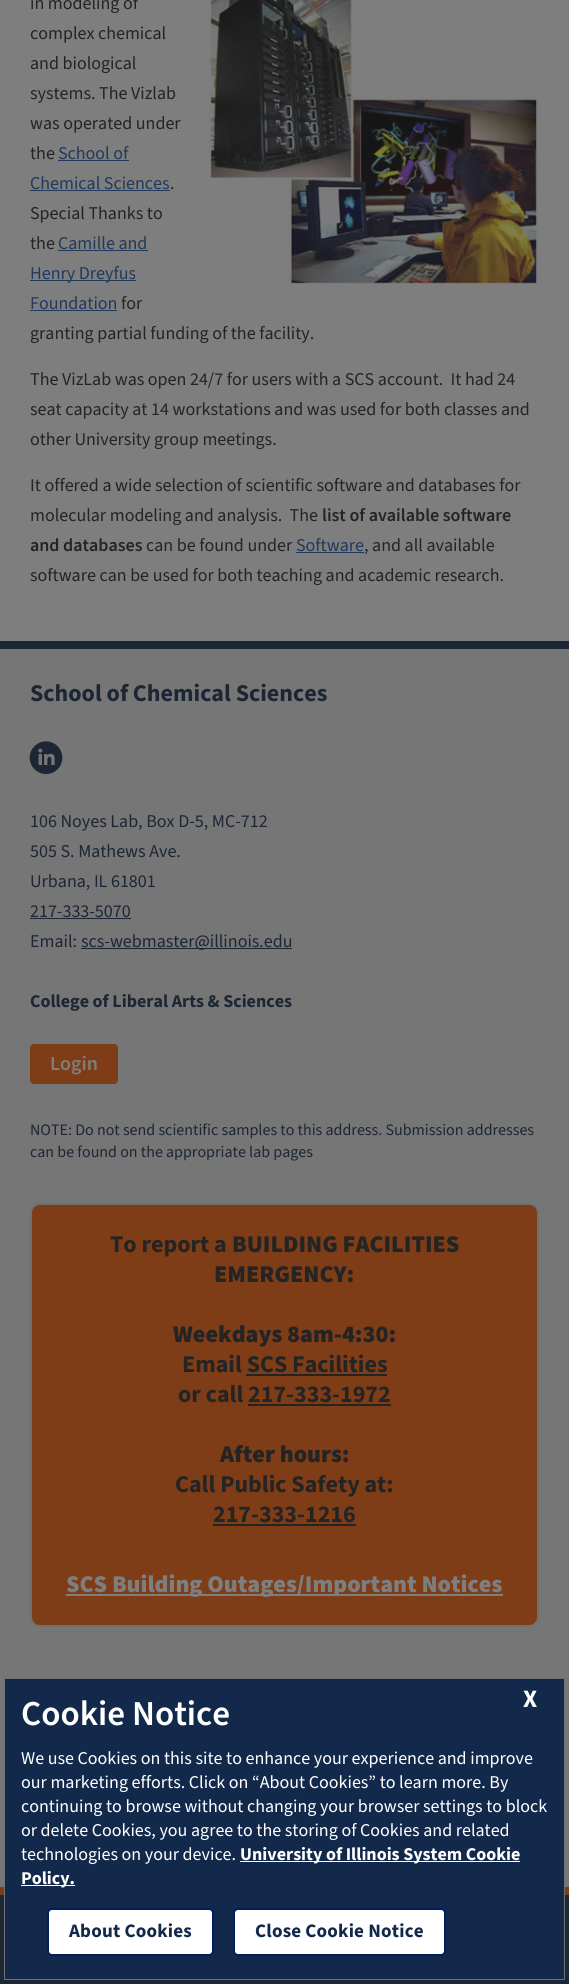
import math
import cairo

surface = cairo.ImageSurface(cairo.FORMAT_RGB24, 569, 1984)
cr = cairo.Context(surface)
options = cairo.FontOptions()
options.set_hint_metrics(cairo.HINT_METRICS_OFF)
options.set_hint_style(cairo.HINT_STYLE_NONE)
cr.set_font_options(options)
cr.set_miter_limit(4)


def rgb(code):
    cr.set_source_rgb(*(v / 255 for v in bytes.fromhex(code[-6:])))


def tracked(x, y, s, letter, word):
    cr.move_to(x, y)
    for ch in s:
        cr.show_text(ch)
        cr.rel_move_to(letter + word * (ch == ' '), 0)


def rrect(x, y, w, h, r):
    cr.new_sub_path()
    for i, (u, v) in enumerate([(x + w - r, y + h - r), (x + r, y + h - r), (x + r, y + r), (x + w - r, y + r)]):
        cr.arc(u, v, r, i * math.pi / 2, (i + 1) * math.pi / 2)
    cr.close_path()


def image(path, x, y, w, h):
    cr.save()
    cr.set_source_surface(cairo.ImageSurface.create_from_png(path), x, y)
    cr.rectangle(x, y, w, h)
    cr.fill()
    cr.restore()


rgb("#7e7e7e")
cr.paint()
image("img/1.png", 209, 0, 330, 284)
for x, y, w, h, color in [
    (58, 160, 71, 1, "#21395a"),
    (30, 190, 140, 1, "#21395a"),
    (58, 250, 90, 1, "#21395a"),
    (30, 280, 106, 1, "#21395a"),
    (30, 310, 87, 1, "#21395a"),
    (296, 552, 68, 1, "#21395a"),
    (0, 649, 569, 1238, "#767676"),
    (0, 641, 569, 8, "#1d2634"),
]:
    rgb(color)
    cr.rectangle(x, y, w, h)
    cr.fill()
image("img/2.png", 29, 741, 34, 33)
cr.rectangle(30, 918, 101, 1)
cr.fill()
cr.rectangle(81, 948, 211, 1)
cr.fill()
rgb("#7e3c17")
rrect(30, 1044, 88, 40, 4)
cr.fill()
rrect(31, 1204, 507, 422, 9)
cr.fill_preserve()
rgb("#707070")
cr.stroke()
for x, y, w, h, color in [
    (246, 1374, 141, 2, "#242424"),
    (248, 1404, 143, 2, "#242424"),
    (213, 1524, 143, 2, "#242424"),
    (66, 1594, 437, 2, "#7e7e7e"),
    (0, 1895, 569, 89, "#1d2634"),
    (0, 1887, 569, 8, "#7e3c17"),
]:
    rgb(color)
    cr.rectangle(x, y, w, h)
    cr.fill()
rgb("#13294b")
cr.rectangle(4.5, 1678.5, 560, 301)
cr.fill_preserve()
rgb("#707070")
cr.set_line_width(1)
cr.stroke()
rgb("#ffffff")
cr.rectangle(240, 1861, 280, 1)
cr.fill()
cr.rectangle(21, 1885, 54, 1)
cr.fill()
rrect(48, 1909, 165, 46, 4)
cr.fill_preserve()
rgb("#001e62")
cr.set_line_width(2)
cr.stroke()
rgb("#ffffff")
rrect(234, 1909, 211, 46, 4)
cr.fill_preserve()
rgb("#001e62")
cr.stroke()
cr.select_font_face("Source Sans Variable")
cr.set_font_size(18)
rgb("#242424")
for x, y, s in [
    (30, 9, "in modeling of"),
    (30, 39, "complex chemical"),
    (30, 69, "and biological"),
    (30, 99, "systems. The Vizlab"),
    (30, 129, "was operated under"),
    (30, 159, "the"),
]:
    cr.move_to(x, y)
    cr.show_text(s)
rgb("#21395a")
cr.move_to(58, 159)
cr.show_text("School of")
cr.move_to(30, 189)
cr.show_text("Chemical Sciences")
rgb("#242424")
for x, y, s in [
    (170, 189, "."),
    (30, 219, "Special Thanks to"),
    (30, 249, "the"),
]:
    cr.move_to(x, y)
    cr.show_text(s)
rgb("#21395a")
for x, y, s in [
    (58, 249, "Camille and"),
    (30, 279, "Henry Dreyfus"),
    (30, 309, "Foundation"),
]:
    cr.move_to(x, y)
    cr.show_text(s)
rgb("#242424")
for x, y, s in [
    (121, 309, "for"),
    (30, 339, "granting partial funding of the facility."),
    (30, 385, "The VizLab was open 24/7 for users with a SCS account.  It had 24"),
    (30, 415, "seat capacity at 14 workstations and was used for both classes and"),
    (30, 445, "other University group meetings."),
    (30, 491, "It offered a wide selection of scientific software and databases for"),
    (30, 521, "molecular modeling and analysis.  The"),
]:
    cr.move_to(x, y)
    cr.show_text(s)
cr.select_font_face("Source Sans Variable SemiBold")
cr.move_to(322, 521)
cr.show_text("list of available software")
cr.move_to(30, 551)
cr.show_text("and databases")
cr.select_font_face("Source Sans Variable")
cr.move_to(146, 551)
cr.show_text("can be found under")
rgb("#21395a")
cr.move_to(296, 551)
cr.show_text("Software")
rgb("#242424")
cr.move_to(364, 551)
cr.show_text(", and all available")
cr.move_to(30, 581)
cr.show_text("software can be used for both teaching and academic research.")
cr.select_font_face("Source Sans Variable", cairo.FONT_SLANT_NORMAL, cairo.FONT_WEIGHT_BOLD)
cr.set_font_size(24)
rgb("#1d2634")
cr.move_to(30, 701)
cr.show_text("School of Chemical Sciences")
cr.select_font_face("Source Sans Variable")
cr.set_font_size(18)
for x, y, s in [
    (30, 827, "106 Noyes Lab, Box D-5, MC-712"),
    (30, 857, "505 S. Mathews Ave."),
    (30, 887, "Urbana, IL 61801"),
    (30, 917, "217-333-5070"),
    (30, 947, "Email:"),
    (81, 947, "scs-webmaster@illinois.edu"),
]:
    cr.move_to(x, y)
    cr.show_text(s)
cr.select_font_face("Source Sans Variable", cairo.FONT_SLANT_NORMAL, cairo.FONT_WEIGHT_BOLD)
cr.move_to(30, 1007)
cr.show_text("College of Liberal Arts & Sciences")
cr.select_font_face("Source Sans Variable SemiBold")
cr.set_font_size(20)
rgb("#7e7e7e")
cr.move_to(50, 1070)
cr.show_text("Login")
cr.select_font_face("Source Sans Variable")
cr.set_font_size(16)
rgb("#1d2634")
cr.move_to(30, 1135)
cr.show_text("NOTE: Do not send scientific samples to this address. Submission addresses")
cr.move_to(30, 1157)
cr.show_text("can be found on the appropriate lab pages")
cr.select_font_face("Source Sans Variable", cairo.FONT_SLANT_NORMAL, cairo.FONT_WEIGHT_BOLD)
cr.set_font_size(24)
rgb("#242424")
cr.move_to(110, 1252)
cr.show_text("To report a")
cr.select_font_face("Source Sans Variable Black")
for x, y, s in [
    (232, 1252, "BUILDING FACILITIES"),
    (214, 1282, "EMERGENCY:"),
    (173, 1342, "Weekdays 8am-4:30:"),
]:
    cr.move_to(x, y)
    cr.show_text(s)
cr.select_font_face("Source Sans Variable", cairo.FONT_SLANT_NORMAL, cairo.FONT_WEIGHT_BOLD)
cr.move_to(182, 1372)
cr.show_text("Email SCS Facilities")
cr.move_to(178, 1402)
cr.show_text("or call 217-333-1972")
cr.select_font_face("Source Sans Variable Black")
cr.move_to(220, 1462)
cr.show_text("After hours:")
cr.select_font_face("Source Sans Variable", cairo.FONT_SLANT_NORMAL, cairo.FONT_WEIGHT_BOLD)
cr.move_to(175, 1492)
cr.show_text("Call Public Safety at:")
cr.move_to(213, 1522)
cr.show_text("217-333-1216")
cr.select_font_face("Source Sans Variable Black")
rgb("#7e7e7e")
cr.move_to(66, 1592)
cr.show_text("SCS Building Outages/Important Notices")
cr.select_font_face("Source Sans Pro SemiBold")
cr.set_font_size(35)
rgb("#ffffff")
cr.move_to(21, 1725)
cr.show_text("Cookie Notice")
cr.select_font_face("Source Sans Variable", cairo.FONT_SLANT_NORMAL, cairo.FONT_WEIGHT_BOLD)
cr.set_font_size(25)
cr.move_to(523, 1707)
cr.show_text("X")
cr.select_font_face("Source Sans Pro")
cr.set_font_size(18)
for x, y, s in [
    (21, 1764, "We use Cookies on this site to enhance your experience and improve"),
    (21, 1788, "our marketing efforts. Click on “About Cookies” to learn more. By"),
    (21, 1812, "continuing to browse without changing your browser settings to block"),
    (21, 1836, "or delete Cookies, you agree to the storing of Cookies and related"),
    (21, 1860, "technologies on your device."),
]:
    cr.move_to(x, y)
    cr.show_text(s)
cr.select_font_face("Source Sans Variable", cairo.FONT_SLANT_NORMAL, cairo.FONT_WEIGHT_BOLD)
cr.move_to(240, 1860)
cr.show_text("University of Illinois System Cookie")
cr.move_to(21, 1884)
cr.show_text("Policy.")
cr.set_font_size(19)
rgb("#13294b")
tracked(69, 1937, "About Cookies", 0.2, 0)
tracked(255, 1937, "Close Cookie Notice", 0.2, 0)
surface.write_to_png("page.png")
